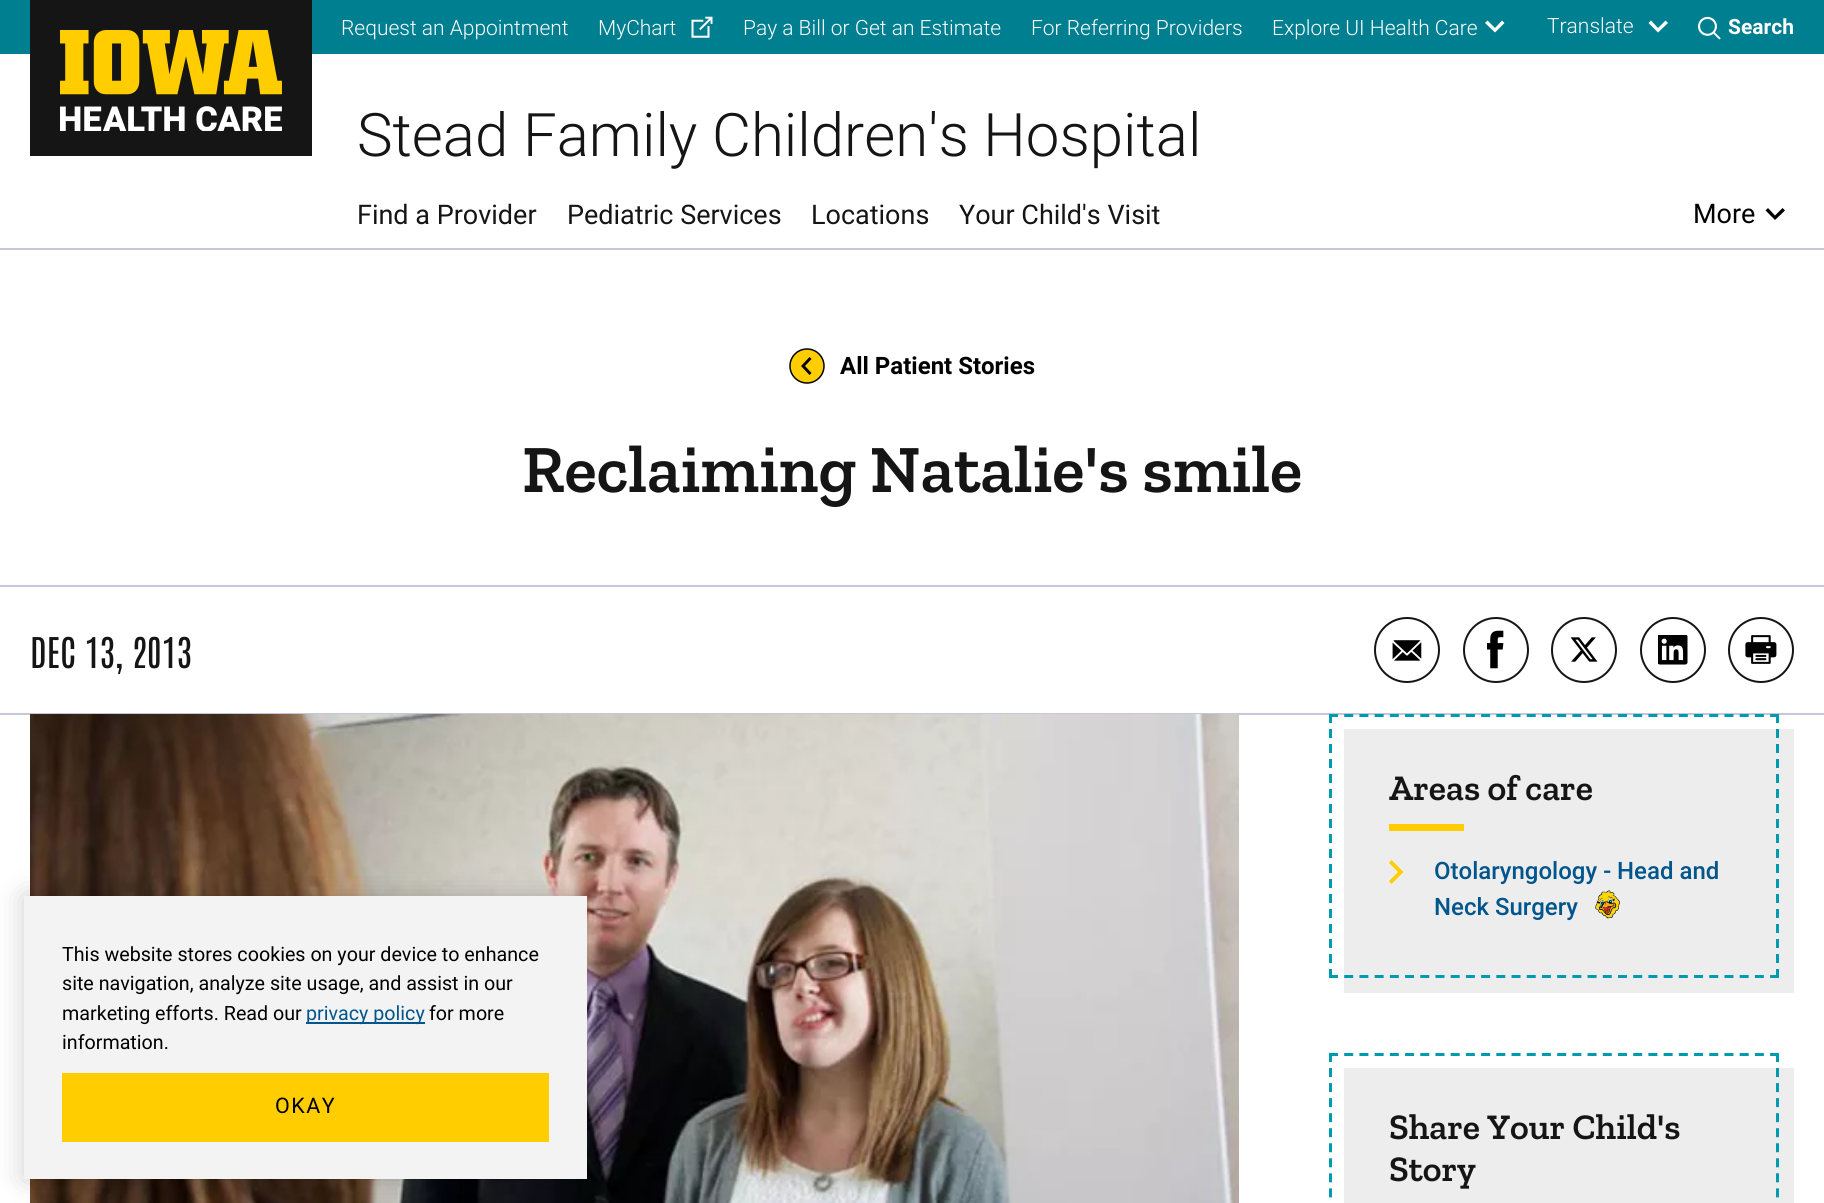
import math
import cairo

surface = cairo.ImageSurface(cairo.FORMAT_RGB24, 1824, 1203)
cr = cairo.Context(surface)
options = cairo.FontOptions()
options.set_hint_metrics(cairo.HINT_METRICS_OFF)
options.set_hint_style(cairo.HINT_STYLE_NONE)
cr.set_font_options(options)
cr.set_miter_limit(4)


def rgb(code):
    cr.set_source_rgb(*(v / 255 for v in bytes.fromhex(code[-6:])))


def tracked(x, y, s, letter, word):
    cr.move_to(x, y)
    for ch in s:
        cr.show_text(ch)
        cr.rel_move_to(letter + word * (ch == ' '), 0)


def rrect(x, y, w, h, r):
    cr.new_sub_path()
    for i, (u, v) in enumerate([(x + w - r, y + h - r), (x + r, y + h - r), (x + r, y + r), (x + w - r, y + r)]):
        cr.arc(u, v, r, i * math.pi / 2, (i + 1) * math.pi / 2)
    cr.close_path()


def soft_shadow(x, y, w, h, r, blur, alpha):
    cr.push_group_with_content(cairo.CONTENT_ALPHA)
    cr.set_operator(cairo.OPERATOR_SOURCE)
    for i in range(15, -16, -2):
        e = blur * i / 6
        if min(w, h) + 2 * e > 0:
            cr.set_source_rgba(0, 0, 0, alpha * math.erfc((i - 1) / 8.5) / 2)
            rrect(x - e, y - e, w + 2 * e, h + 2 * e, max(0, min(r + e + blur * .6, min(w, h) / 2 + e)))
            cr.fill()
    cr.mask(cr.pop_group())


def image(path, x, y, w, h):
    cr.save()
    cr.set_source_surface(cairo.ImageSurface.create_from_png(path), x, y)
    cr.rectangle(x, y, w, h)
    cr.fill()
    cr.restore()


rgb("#ffffff")
cr.paint()
rgb("#c4c8d8")
cr.rectangle(0, 248, 1824, 2)
cr.fill()
rgb("#007f91")
cr.rectangle(0, 0, 1824, 54)
cr.fill()
image("img/1.png", 691, 16, 22, 22)
rgb("#ffffff")
cr.new_path()
cr.move_to(1487.5, 20.5)
cr.line_to(1495, 28)
cr.line_to(1502, 20.5)
cr.line_to(1504.5, 23)
cr.line_to(1495, 32.5)
cr.line_to(1485, 23)
cr.close_path()
cr.fill()
cr.new_path()
cr.move_to(1651, 20.5)
cr.line_to(1658, 28)
cr.line_to(1665.5, 20.5)
cr.line_to(1668, 23)
cr.line_to(1658, 32.5)
cr.line_to(1648.5, 23)
cr.close_path()
cr.fill()
image("img/2.png", 1698, 16, 23, 24)
rgb("#151515")
cr.rectangle(30, 0, 282, 156)
cr.fill()
image("img/3.png", 60, 30, 222, 101)
rgb("#000000")
cr.new_path()
cr.move_to(1768, 208)
cr.line_to(1775, 215.5)
cr.line_to(1782.5, 208)
cr.line_to(1785, 210.5)
cr.line_to(1775, 220)
cr.line_to(1765.5, 210.5)
cr.close_path()
cr.fill()
rgb("#ffcd00")
cr.arc(807, 366, 17, 0, 2 * math.pi)
cr.fill_preserve()
rgb("#000000")
cr.set_line_width(1.5)
cr.stroke()
cr.new_path()
cr.move_to(811.5, 373)
cr.line_to(805, 366)
cr.line_to(811.5, 359)
cr.line_to(809.5, 357)
cr.line_to(801, 366)
cr.line_to(809.5, 375)
cr.close_path()
cr.fill()
rgb("#c4c8d8")
cr.rectangle(0, 585, 1824, 2)
cr.fill()
cr.rectangle(0, 713, 1824, 2)
cr.fill()
cr.arc(1407, 650, 32, 0, 2 * math.pi)
rgb("#151515")
cr.set_line_width(2)
cr.stroke()
image("img/4.png", 1392, 640, 30, 21)
cr.arc(1496, 650, 32, 0, 2 * math.pi)
cr.stroke()
image("img/5.png", 1487, 630, 17, 39)
cr.arc(1584, 650, 32, 0, 2 * math.pi)
cr.stroke()
image("img/6.png", 1570, 637, 28, 25)
cr.arc(1673, 650, 32, 0, 2 * math.pi)
cr.stroke()
image("img/7.png", 1658, 635, 30, 30)
cr.arc(1761, 650, 32, 0, 2 * math.pi)
cr.stroke()
image("img/8.png", 1745, 635, 32, 29)
image("img/9.png", 30, 714, 1209, 489)
rgb("#ededed")
cr.rectangle(1344, 729, 450, 264)
cr.fill()
cr.new_path()
cr.move_to(1329, 715.5)
cr.line_to(1779, 715.5)
rgb("#009ab0")
cr.set_line_width(3)
cr.set_dash([9, 6.21])
cr.stroke()
cr.new_path()
cr.move_to(1777.5, 714)
cr.line_to(1777.5, 978)
cr.set_dash([9, 6])
cr.stroke()
cr.new_path()
cr.move_to(1329, 976.5)
cr.line_to(1779, 976.5)
cr.set_dash([9, 6.21])
cr.stroke()
cr.new_path()
cr.move_to(1330.5, 714)
cr.line_to(1330.5, 978)
cr.set_dash([9, 6])
cr.stroke()
rgb("#ffcd00")
cr.rectangle(1389, 824, 75, 7)
cr.fill()
cr.new_path()
cr.move_to(1389, 863)
cr.line_to(1398, 872)
cr.line_to(1389, 881)
cr.line_to(1391.5, 884)
cr.line_to(1403.5, 872)
cr.line_to(1391.5, 860)
cr.close_path()
cr.fill()
image("img/10.png", 1595, 890, 25, 29)
rgb("#ededed")
cr.rectangle(1344, 1068, 450, 135)
cr.fill()
cr.new_path()
cr.move_to(1329, 1054.5)
cr.line_to(1779, 1054.5)
rgb("#009ab0")
cr.set_dash([9, 6.21])
cr.stroke()
cr.new_path()
cr.move_to(1777.5, 1053)
cr.line_to(1777.5, 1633.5)
cr.set_dash([9, 6.04])
cr.stroke()
cr.new_path()
cr.move_to(1330.5, 1053)
cr.line_to(1330.5, 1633.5)
cr.stroke()
rgb("#000000")
soft_shadow(24, 896, 563, 283, 0, 13.5, 0.2)
for x, y, w, h, color in [
    (24, 896, 563, 283, "#f3f3f3"),
    (306, 1022, 119, 2, "#00558c"),
    (62, 1073, 487, 69, "#ffcd00"),
]:
    rgb(color)
    cr.rectangle(x, y, w, h)
    cr.fill()
cr.select_font_face("Roboto Light")
cr.set_font_size(21)
rgb("#ffffff")
for x, y, s in [
    (341, 35, "Request an Appointment"),
    (598, 35, "MyChart"),
    (743, 35, "Pay a Bill or Get an Estimate"),
    (1031, 35, "For Referring Providers"),
    (1272, 35, "Explore UI Health Care"),
    (1547, 33, "Translate"),
]:
    cr.move_to(x, y)
    cr.show_text(s)
cr.select_font_face("Roboto", cairo.FONT_SLANT_NORMAL, cairo.FONT_WEIGHT_BOLD)
cr.move_to(1728, 34)
cr.show_text("Search")
cr.select_font_face("Roboto Light")
cr.set_font_size(60)
rgb("#151515")
cr.move_to(357, 156)
cr.show_text("Stead Family Children's Hospital")
cr.select_font_face("Roboto")
cr.set_font_size(27)
for x, y, s in [
    (357, 224, "Find a Provider"),
    (567, 224, "Pediatric Services"),
    (811, 224, "Locations"),
    (959, 224, "Your Child's Visit"),
]:
    cr.move_to(x, y)
    cr.show_text(s)
rgb("#000000")
cr.move_to(1693, 223)
cr.show_text("More")
cr.select_font_face("Roboto", cairo.FONT_SLANT_NORMAL, cairo.FONT_WEIGHT_BOLD)
cr.set_font_size(24)
cr.move_to(840, 374)
cr.show_text("All Patient Stories")
cr.select_font_face("Zilla Slab SemiBold")
cr.set_font_size(67.5)
rgb("#151515")
cr.move_to(522, 492)
cr.show_text("Reclaiming Natalie's smile")
cr.select_font_face("Antonio")
cr.set_font_size(36)
cr.move_to(30, 668)
cr.show_text("DEC 13, 2013")
cr.select_font_face("Zilla Slab SemiBold")
cr.move_to(1389, 800)
cr.show_text("Areas of care")
cr.select_font_face("Roboto Medium")
cr.set_font_size(24)
rgb("#00558c")
cr.move_to(1434, 879)
cr.show_text("Otolaryngology - Head and")
cr.move_to(1434, 915)
cr.show_text("Neck Surgery")
cr.select_font_face("Zilla Slab SemiBold")
cr.set_font_size(36)
rgb("#151515")
cr.move_to(1389, 1139)
cr.show_text("Share Your Child's")
cr.move_to(1389, 1181)
cr.show_text("Story")
cr.select_font_face("Roboto")
cr.set_font_size(19.7)
rgb("#000000")
for x, y, s in [
    (62, 961, "This website stores cookies on your device to enhance"),
    (62, 990, "site navigation, analyze site usage, and assist in our"),
    (62, 1020, "marketing efforts. Read our"),
]:
    cr.move_to(x, y)
    cr.show_text(s)
rgb("#00558c")
cr.move_to(306, 1020)
cr.show_text("privacy policy")
rgb("#000000")
cr.move_to(429, 1020)
cr.show_text("for more")
cr.move_to(62, 1049)
cr.show_text("information.")
cr.set_font_size(21.5)
tracked(275, 1113, "OKAY", 1.5, 0)
surface.write_to_png("page.png")
